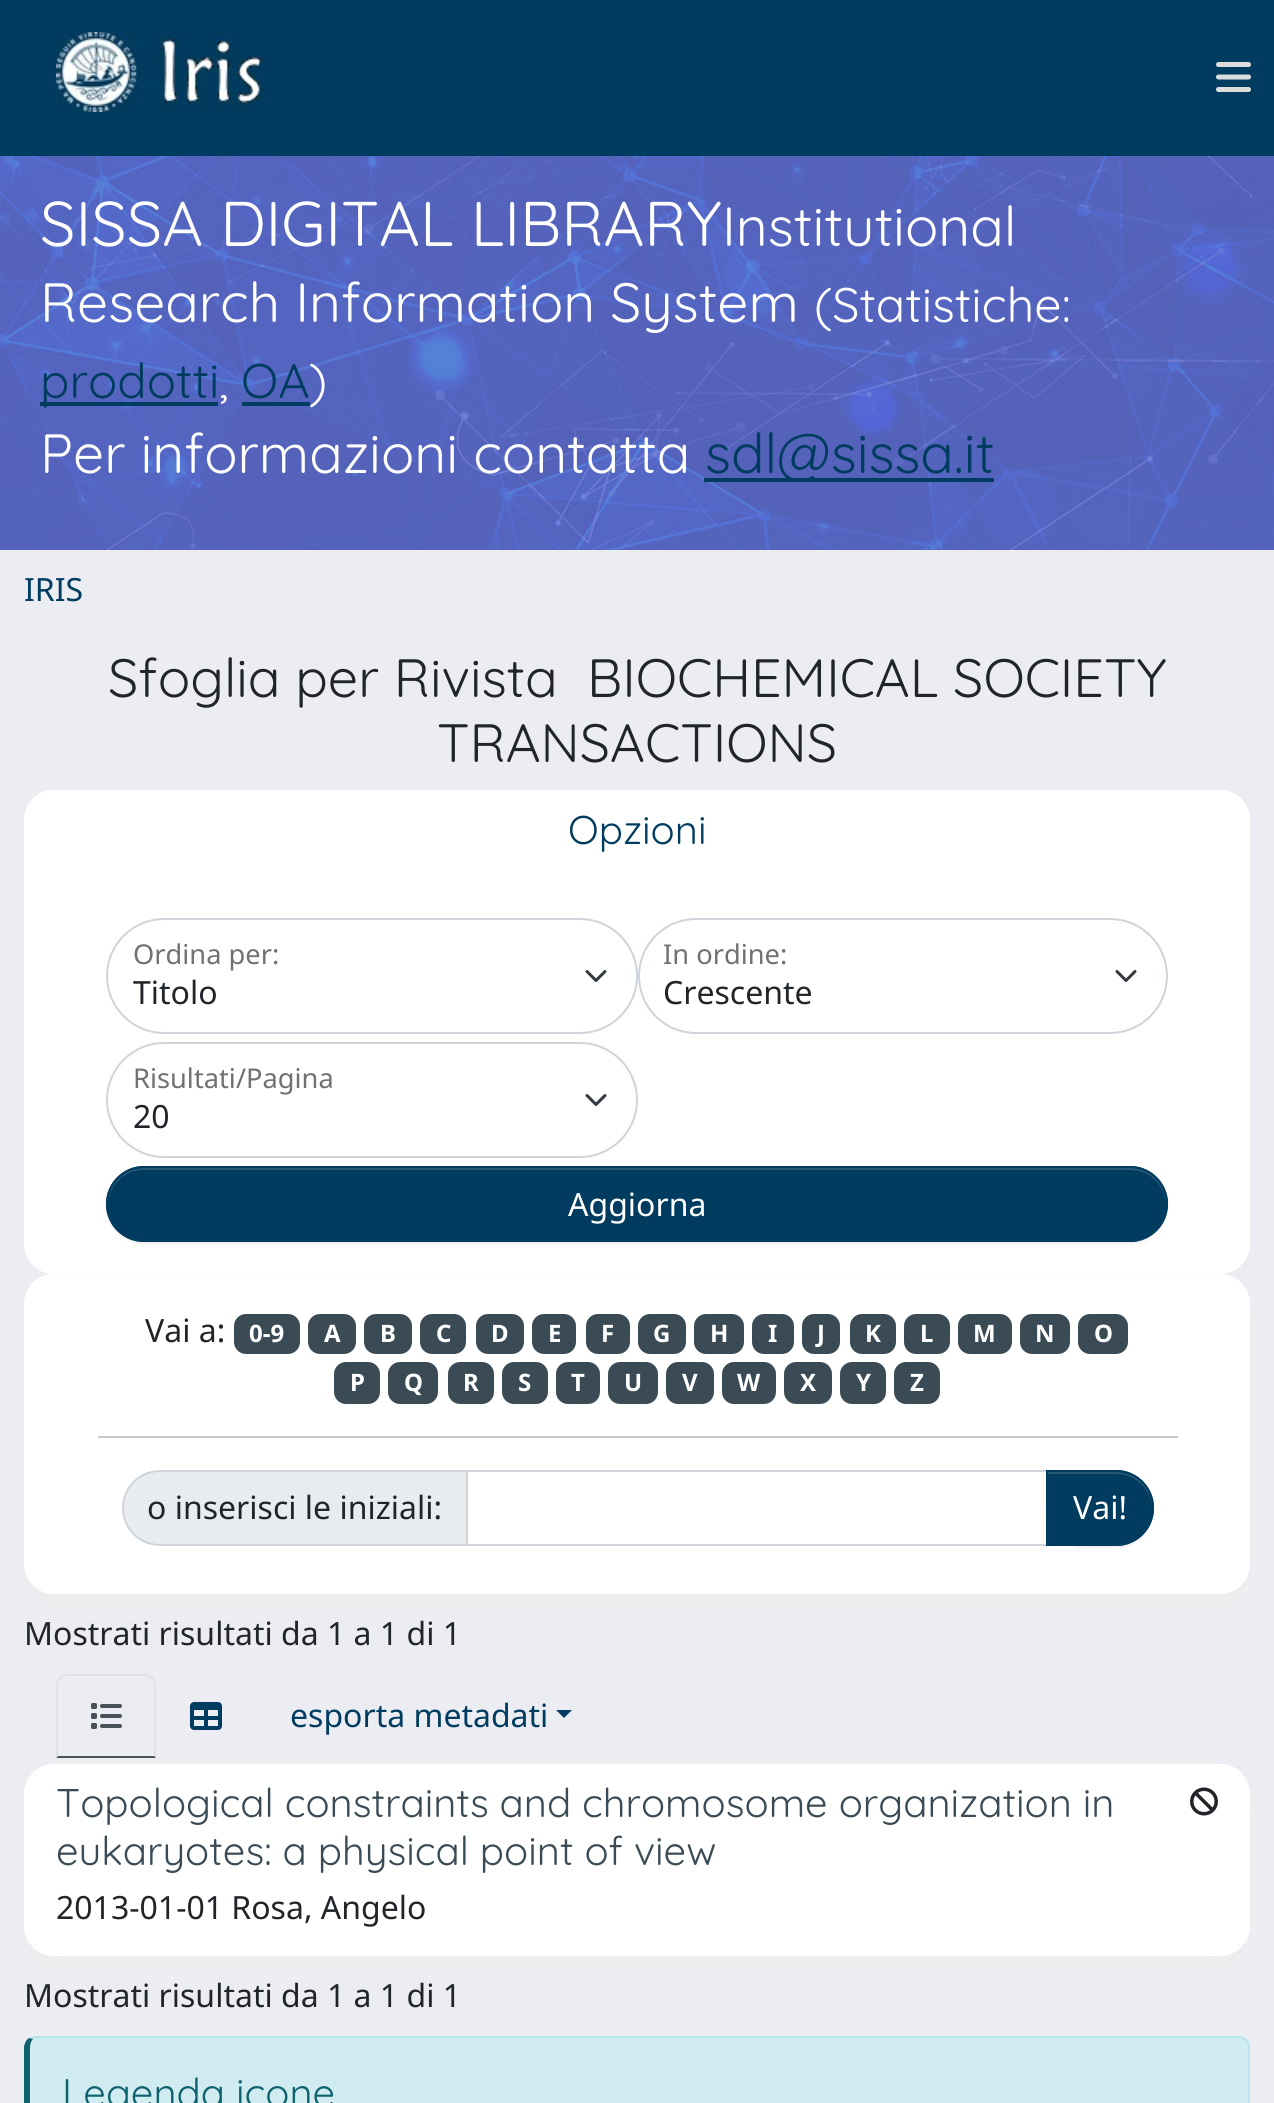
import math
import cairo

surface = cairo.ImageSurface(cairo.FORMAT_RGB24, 1274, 2103)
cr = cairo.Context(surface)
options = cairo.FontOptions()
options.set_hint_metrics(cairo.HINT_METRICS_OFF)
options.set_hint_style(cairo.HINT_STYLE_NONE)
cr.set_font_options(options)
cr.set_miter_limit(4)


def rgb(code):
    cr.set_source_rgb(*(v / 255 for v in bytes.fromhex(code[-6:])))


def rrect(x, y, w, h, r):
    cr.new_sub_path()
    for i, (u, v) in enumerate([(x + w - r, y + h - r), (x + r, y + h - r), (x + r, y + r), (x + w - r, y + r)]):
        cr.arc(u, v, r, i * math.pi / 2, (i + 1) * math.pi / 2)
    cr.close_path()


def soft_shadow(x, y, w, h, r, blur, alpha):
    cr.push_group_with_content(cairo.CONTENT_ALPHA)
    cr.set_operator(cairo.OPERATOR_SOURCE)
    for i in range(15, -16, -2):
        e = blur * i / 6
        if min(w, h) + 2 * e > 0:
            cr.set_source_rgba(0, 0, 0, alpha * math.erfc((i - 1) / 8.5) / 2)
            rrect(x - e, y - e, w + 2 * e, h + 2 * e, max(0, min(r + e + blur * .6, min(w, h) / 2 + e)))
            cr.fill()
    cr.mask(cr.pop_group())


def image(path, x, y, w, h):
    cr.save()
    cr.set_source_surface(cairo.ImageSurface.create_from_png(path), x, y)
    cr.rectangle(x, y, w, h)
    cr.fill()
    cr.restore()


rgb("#ecedf2")
cr.paint()
rgb("#003c5f")
cr.rectangle(0, 0, 1274, 156)
cr.fill()
image("img/1.png", 56, 32, 207, 80)
image("img/2.png", 1216, 62, 35, 30)
image("img/3.png", 0, 156, 1274, 394)
for x, y, w, h, color in [
    (40, 402, 178, 4, "#003c5f"),
    (242, 402, 68, 4, "#003c5f"),
    (704, 478, 290, 4, "#003c5f"),
]:
    rgb(color)
    cr.rectangle(x, y, w, h)
    cr.fill()
rgb("#ffffff")
rrect(24, 790, 1226, 484, 30)
cr.fill()
cr.new_path()
cr.move_to(54, 790)
cr.line_to(1220, 790)
cr.curve_to(1236.5, 790, 1250, 803.5, 1250, 820)
cr.line_to(1250, 886)
cr.line_to(24, 886)
cr.line_to(24, 820)
cr.curve_to(24, 803.5, 37.5, 790, 54, 790)
cr.close_path()
cr.fill()
cr.new_path()
cr.move_to(587, 971.5)
cr.line_to(596, 980.5)
cr.line_to(605, 971.5)
rgb("#343a40")
cr.set_line_width(3)
cr.set_line_cap(cairo.LINE_CAP_ROUND)
cr.set_line_join(cairo.LINE_JOIN_ROUND)
cr.stroke()
rrect(107, 919, 530, 114, 57)
rgb("#ced4da")
cr.set_line_width(2)
cr.set_line_cap(cairo.LINE_CAP_BUTT)
cr.set_line_join(cairo.LINE_JOIN_MITER)
cr.stroke()
cr.new_path()
cr.move_to(1117, 971.5)
cr.line_to(1126, 980.5)
cr.line_to(1135, 971.5)
rgb("#343a40")
cr.set_line_width(3)
cr.set_line_cap(cairo.LINE_CAP_ROUND)
cr.set_line_join(cairo.LINE_JOIN_ROUND)
cr.stroke()
rrect(639, 919, 528, 114, 57)
rgb("#ced4da")
cr.set_line_width(2)
cr.set_line_cap(cairo.LINE_CAP_BUTT)
cr.set_line_join(cairo.LINE_JOIN_MITER)
cr.stroke()
cr.new_path()
cr.move_to(587, 1095.5)
cr.line_to(596, 1104.5)
cr.line_to(605, 1095.5)
rgb("#343a40")
cr.set_line_width(3)
cr.set_line_cap(cairo.LINE_CAP_ROUND)
cr.set_line_join(cairo.LINE_JOIN_ROUND)
cr.stroke()
rrect(107, 1043, 530, 114, 57)
rgb("#ced4da")
cr.set_line_width(2)
cr.set_line_cap(cairo.LINE_CAP_BUTT)
cr.set_line_join(cairo.LINE_JOIN_MITER)
cr.stroke()
rgb("#000000")
soft_shadow(106, 1168, 1062, 76, 38, 1, 0.07)
rgb("#003c5f")
rrect(106, 1166, 1062, 76, 38)
cr.fill()
rgb("#265977")
cr.new_path()
cr.move_to(144, 1170)
cr.line_to(1130, 1170)
cr.curve_to(1150, 1170, 1165, 1185, 1166, 1205)
cr.line_to(1166, 1204)
cr.curve_to(1166, 1184, 1150, 1168, 1130, 1168)
cr.line_to(144, 1168)
cr.curve_to(124, 1168, 108, 1184, 108, 1204)
cr.line_to(108, 1205)
cr.curve_to(109, 1185, 124, 1170, 144, 1170)
cr.close_path()
cr.fill()
rrect(107, 1167, 1060, 74, 37)
rgb("#003c5f")
cr.stroke()
rgb("#eeeeee")
soft_shadow(30, 1300, 1214, 308, 24, 15, 1)
rgb("#ffffff")
rrect(24, 1274, 1226, 320, 30)
cr.fill()
rgb("#3a4b55")
rrect(234, 1314, 66, 40, 12)
cr.fill()
rrect(308, 1314, 48, 40, 12)
cr.fill()
rrect(364, 1314, 48, 40, 12)
cr.fill()
rrect(420, 1314, 46, 40, 12)
cr.fill()
rrect(476, 1314, 48, 40, 12)
cr.fill()
rrect(532, 1314, 44, 40, 12)
cr.fill()
rrect(586, 1314, 44, 40, 12)
cr.fill()
rrect(638, 1314, 48, 40, 12)
cr.fill()
rrect(694, 1314, 50, 40, 12)
cr.fill()
rrect(752, 1314, 42, 40, 12)
cr.fill()
rrect(802, 1314, 38, 40, 12)
cr.fill()
rrect(850, 1314, 46, 40, 12)
cr.fill()
rrect(904, 1314, 46, 40, 12)
cr.fill()
rrect(958, 1314, 54, 40, 12)
cr.fill()
rrect(1020, 1314, 50, 40, 12)
cr.fill()
rrect(1078, 1314, 50, 40, 12)
cr.fill()
rrect(334, 1362, 46, 42, 12)
cr.fill()
rrect(388, 1362, 50, 42, 12)
cr.fill()
rrect(448, 1362, 46, 42, 12)
cr.fill()
rrect(502, 1362, 46, 42, 12)
cr.fill()
rrect(556, 1362, 44, 42, 12)
cr.fill()
rrect(608, 1362, 50, 42, 12)
cr.fill()
rrect(666, 1362, 48, 42, 12)
cr.fill()
rrect(722, 1362, 54, 42, 12)
cr.fill()
rrect(784, 1362, 48, 42, 12)
cr.fill()
rrect(840, 1362, 46, 42, 12)
cr.fill()
rrect(894, 1362, 46, 42, 12)
cr.fill()
rgb("#c8c9ca")
cr.rectangle(98, 1436, 1080, 2)
cr.fill()
rgb("#e9ecef")
cr.new_path()
cr.move_to(160, 1471)
cr.line_to(467, 1471)
cr.line_to(467, 1545)
cr.line_to(160, 1545)
cr.curve_to(139.5, 1545, 123, 1528.5, 123, 1508)
cr.curve_to(123, 1487.5, 139.5, 1471, 160, 1471)
cr.close_path()
cr.fill_preserve()
rgb("#ced4da")
cr.stroke()
cr.rectangle(467, 1471, 580, 74)
cr.stroke()
rgb("#000000")
soft_shadow(1046, 1472, 108, 76, 38, 1, 0.07)
rgb("#003c5f")
cr.new_path()
cr.move_to(1046, 1470)
cr.line_to(1116, 1470)
cr.curve_to(1137, 1470, 1154, 1487, 1154, 1508)
cr.curve_to(1154, 1529, 1137, 1546, 1116, 1546)
cr.line_to(1046, 1546)
cr.close_path()
cr.fill()
rgb("#265977")
cr.new_path()
cr.move_to(1048, 1474)
cr.line_to(1116, 1474)
cr.curve_to(1136, 1474, 1151, 1489, 1152, 1509)
cr.line_to(1152, 1508)
cr.curve_to(1152, 1488, 1136, 1472, 1116, 1472)
cr.line_to(1048, 1472)
cr.close_path()
cr.fill()
cr.new_path()
cr.move_to(1047, 1471)
cr.line_to(1116, 1471)
cr.curve_to(1136.5, 1471, 1153, 1487.5, 1153, 1508)
cr.curve_to(1153, 1528.5, 1136.5, 1545, 1116, 1545)
cr.line_to(1047, 1545)
cr.close_path()
rgb("#003c5f")
cr.stroke()
rgb("#dee2e6")
cr.new_path()
cr.move_to(68, 1674)
cr.curve_to(64, 1674, 62, 1675, 59, 1677)
cr.line_to(61, 1679)
cr.curve_to(62, 1677, 65, 1676, 68, 1676)
cr.line_to(144, 1676)
cr.curve_to(147, 1676, 150, 1677, 151, 1679)
cr.line_to(153, 1677)
cr.curve_to(150, 1675, 148, 1674, 144, 1674)
cr.close_path()
cr.fill()
cr.new_path()
cr.move_to(156, 1758)
cr.line_to(156, 1686)
cr.curve_to(156, 1682, 155, 1680, 153, 1677)
cr.line_to(151, 1679)
cr.curve_to(153, 1680, 154, 1683, 154, 1686)
cr.line_to(154, 1756)
cr.close_path()
cr.fill()
rgb("#495057")
cr.new_path()
cr.move_to(156, 1758)
cr.line_to(154, 1756)
cr.line_to(58, 1756)
cr.line_to(56, 1758)
cr.close_path()
cr.fill()
rgb("#dee2e6")
cr.new_path()
cr.move_to(56, 1758)
cr.line_to(58, 1756)
cr.line_to(58, 1686)
cr.curve_to(58, 1683, 59, 1680, 61, 1679)
cr.line_to(59, 1677)
cr.curve_to(57, 1680, 56, 1682, 56, 1686)
cr.close_path()
cr.fill()
image("img/4.png", 91, 1703, 31, 26)
image("img/5.png", 190, 1702, 32, 28)
rgb("#003c5f")
cr.new_path()
cr.move_to(556, 1710)
cr.line_to(572, 1710)
cr.line_to(564, 1718)
cr.close_path()
cr.fill()
rgb("#eeeeee")
soft_shadow(30, 1790, 1214, 180, 24, 15, 1)
rgb("#ffffff")
rrect(24, 1764, 1226, 192, 30)
cr.fill()
image("img/6.png", 1190, 1787, 28, 29)
rgb("#d1ecf1")
cr.new_path()
cr.move_to(36, 2038)
cr.line_to(1238, 2038)
cr.curve_to(1244, 2038, 1248, 2042, 1248, 2048)
cr.line_to(1248, 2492)
cr.curve_to(1248, 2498, 1244, 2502, 1238, 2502)
cr.line_to(36, 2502)
cr.curve_to(33, 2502, 30, 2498, 30, 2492)
cr.line_to(30, 2048)
cr.curve_to(30, 2042, 33, 2038, 36, 2038)
cr.close_path()
cr.fill()
rgb("#b9e3ea")
cr.new_path()
cr.move_to(36, 2036)
cr.curve_to(33, 2036, 31, 2037, 29, 2038)
cr.line_to(33, 2039)
cr.line_to(36, 2038)
cr.line_to(1238, 2038)
cr.curve_to(1241, 2038, 1243, 2039, 1245, 2041)
cr.line_to(1247, 2039)
cr.curve_to(1244, 2037, 1242, 2036, 1238, 2036)
cr.close_path()
cr.fill()
cr.new_path()
cr.move_to(1250, 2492)
cr.line_to(1250, 2048)
cr.curve_to(1250, 2044, 1249, 2042, 1247, 2039)
cr.line_to(1245, 2041)
cr.curve_to(1247, 2042, 1248, 2045, 1248, 2048)
cr.line_to(1248, 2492)
cr.curve_to(1248, 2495, 1247, 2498, 1245, 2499)
cr.line_to(1247, 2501)
cr.curve_to(1249, 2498, 1250, 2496, 1250, 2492)
cr.close_path()
cr.fill()
rgb("#0e616e")
cr.new_path()
cr.move_to(24, 2048)
cr.line_to(24, 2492)
cr.curve_to(24, 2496, 26, 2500, 29, 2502)
cr.line_to(33, 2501)
cr.curve_to(31, 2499, 30, 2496, 30, 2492)
cr.line_to(30, 2048)
cr.curve_to(30, 2044, 31, 2041, 33, 2039)
cr.line_to(29, 2038)
cr.curve_to(26, 2040, 24, 2044, 24, 2048)
cr.close_path()
cr.fill()
cr.select_font_face("Quicksand Light")
cr.set_font_size(63.1)
rgb("#ffffff")
cr.move_to(40, 246)
cr.show_text("SISSA DIGITAL LIBRARY")
cr.set_font_size(55.25)
cr.move_to(722, 246)
cr.show_text("Institutional")
cr.move_to(40, 322)
cr.show_text("Research Information System")
cr.set_font_size(48.5)
cr.move_to(814, 322)
cr.show_text("(Statistiche:")
rgb("#003c5f")
cr.move_to(40, 398)
cr.show_text("prodotti")
rgb("#ffffff")
cr.move_to(219, 398)
cr.show_text(",")
rgb("#003c5f")
cr.move_to(241, 398)
cr.show_text("OA")
rgb("#ffffff")
cr.move_to(309, 398)
cr.show_text(")")
cr.set_font_size(55.25)
cr.move_to(40, 473)
cr.show_text("Per informazioni contatta")
rgb("#003c5f")
cr.move_to(705, 473)
cr.show_text("sdl@sissa.it")
cr.select_font_face("Noto Sans")
cr.set_font_size(32)
cr.move_to(24, 601)
cr.show_text("IRIS")
cr.select_font_face("Quicksand Light")
cr.set_font_size(53.9)
rgb("#212529")
cr.move_to(108, 697)
cr.show_text("Sfoglia per Rivista  BIOCHEMICAL SOCIETY")
cr.move_to(437, 762)
cr.show_text("TRANSACTIONS")
cr.set_font_size(40)
rgb("#003c5f")
cr.move_to(568, 844)
cr.show_text("Opzioni")
cr.select_font_face("Noto Sans")
cr.set_font_size(27.25)
rgb("#6f7174")
cr.move_to(133, 964)
cr.show_text("Ordina per:")
cr.set_font_size(32)
rgb("#212529")
cr.move_to(133, 1004)
cr.show_text("Titolo")
cr.set_font_size(27.25)
rgb("#6f7174")
cr.move_to(663, 964)
cr.show_text("In ordine:")
cr.set_font_size(32)
rgb("#212529")
cr.move_to(663, 1004)
cr.show_text("Crescente")
cr.set_font_size(27.25)
rgb("#6f7174")
cr.move_to(133, 1088)
cr.show_text("Risultati/Pagina")
cr.set_font_size(32)
rgb("#212529")
cr.move_to(133, 1128)
cr.show_text("20")
rgb("#ffffff")
cr.move_to(568, 1216)
cr.show_text("Aggiorna")
rgb("#212529")
cr.move_to(145, 1342)
cr.show_text("Vai a:")
cr.select_font_face("Noto Sans", cairo.FONT_SLANT_NORMAL, cairo.FONT_WEIGHT_BOLD)
cr.set_font_size(24)
rgb("#ffffff")
for x, y, s in [
    (249, 1342, "0-9"),
    (324, 1342, "A"),
    (380, 1342, "B"),
    (436, 1342, "C"),
    (491, 1342, "D"),
    (548, 1342, "E"),
    (601, 1342, "F"),
    (653, 1342, "G"),
    (710, 1342, "H"),
    (768, 1342, "I"),
    (817, 1342, "J"),
    (865, 1342, "K"),
    (920, 1342, "L"),
    (973, 1342, "M"),
    (1035, 1342, "N"),
    (1094, 1342, "O"),
    (350, 1391, "P"),
    (404, 1391, "Q"),
    (463, 1391, "R"),
    (518, 1391, "S"),
    (571, 1391, "T"),
    (624, 1391, "U"),
    (682, 1391, "V"),
    (737, 1391, "W"),
    (800, 1391, "X"),
    (856, 1391, "Y"),
    (910, 1391, "Z"),
]:
    cr.move_to(x, y)
    cr.show_text(s)
cr.select_font_face("Noto Sans")
cr.set_font_size(32)
rgb("#212529")
cr.move_to(147, 1519)
cr.show_text("o inserisci le iniziali:")
rgb("#ffffff")
cr.move_to(1073, 1519)
cr.show_text("Vai!")
rgb("#212529")
cr.move_to(24, 1645)
cr.show_text("Mostrati risultati da 1 a 1 di 1")
rgb("#003c5f")
cr.move_to(290, 1727)
cr.show_text("esporta metadati")
cr.select_font_face("Quicksand Light")
cr.set_font_size(40)
rgb("#3a4b55")
cr.move_to(56, 1817)
cr.show_text("Topological constraints and chromosome organization in")
cr.move_to(56, 1865)
cr.show_text("eukaryotes: a physical point of view")
cr.select_font_face("Noto Sans")
cr.set_font_size(32)
rgb("#212529")
cr.move_to(56, 1919)
cr.show_text("2013-01-01 Rosa, Angelo")
cr.move_to(24, 2007)
cr.show_text("Mostrati risultati da 1 a 1 di 1")
cr.select_font_face("Quicksand Light")
cr.set_font_size(40)
rgb("#0e616e")
cr.move_to(62, 2107)
cr.show_text("Legenda icone")
surface.write_to_png("page.png")
